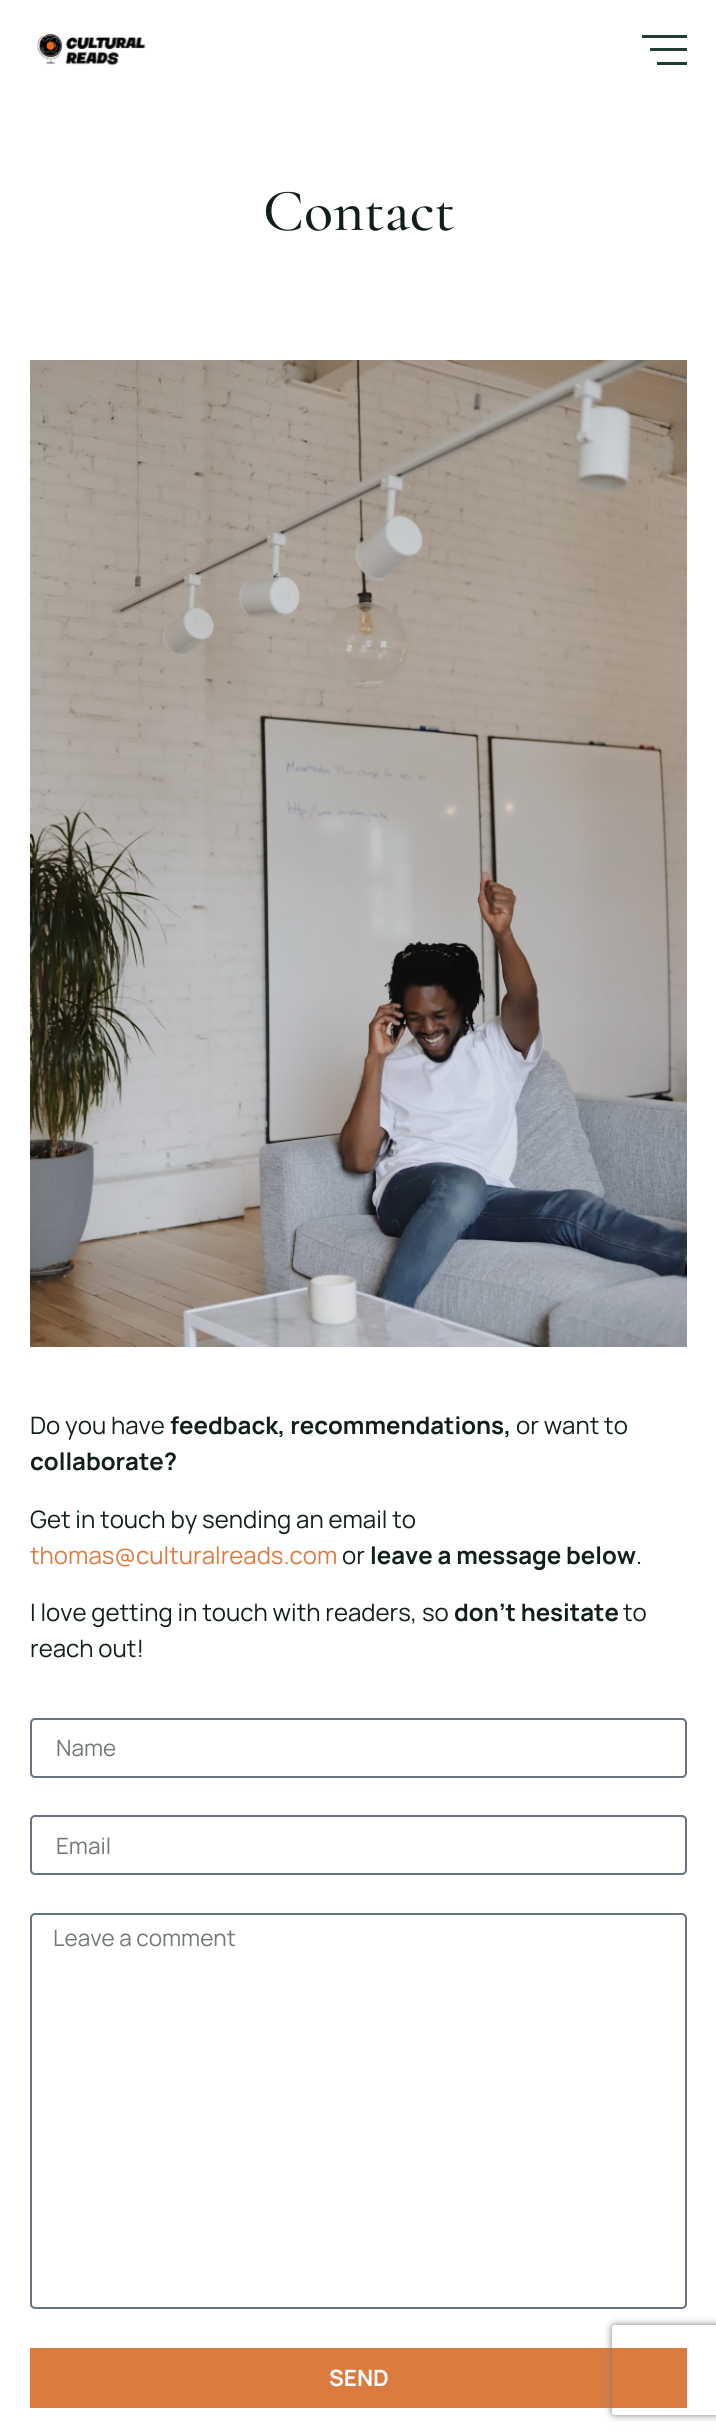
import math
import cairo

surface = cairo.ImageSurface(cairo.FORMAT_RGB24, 716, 2436)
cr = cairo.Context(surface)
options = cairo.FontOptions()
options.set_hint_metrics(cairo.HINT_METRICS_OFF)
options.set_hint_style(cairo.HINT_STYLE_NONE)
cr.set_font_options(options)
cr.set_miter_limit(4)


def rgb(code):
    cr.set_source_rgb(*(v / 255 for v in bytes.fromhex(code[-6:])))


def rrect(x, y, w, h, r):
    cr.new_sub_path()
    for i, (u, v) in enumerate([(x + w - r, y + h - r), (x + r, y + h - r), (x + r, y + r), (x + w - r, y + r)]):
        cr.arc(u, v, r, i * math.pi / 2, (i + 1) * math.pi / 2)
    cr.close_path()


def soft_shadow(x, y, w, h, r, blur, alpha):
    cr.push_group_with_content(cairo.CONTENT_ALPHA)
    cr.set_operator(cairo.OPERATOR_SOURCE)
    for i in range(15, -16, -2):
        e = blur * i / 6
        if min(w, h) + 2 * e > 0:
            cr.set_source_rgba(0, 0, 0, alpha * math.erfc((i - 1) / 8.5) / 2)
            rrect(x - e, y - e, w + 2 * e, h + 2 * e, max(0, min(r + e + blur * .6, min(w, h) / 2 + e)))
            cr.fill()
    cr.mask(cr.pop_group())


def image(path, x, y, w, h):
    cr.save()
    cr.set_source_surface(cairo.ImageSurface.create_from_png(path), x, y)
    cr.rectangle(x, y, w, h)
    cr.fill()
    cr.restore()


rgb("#ffffff")
cr.paint()
image("img/1.png", 37, 33, 109, 33)
for x, y, w, h, color in [
    (642, 35, 45, 3, "#1f3e2f"),
    (650, 48, 37, 3, "#1f3e2f"),
    (657, 62, 30, 3, "#1f3e2f"),
]:
    rgb(color)
    cr.rectangle(x, y, w, h)
    cr.fill()
image("img/2.png", 30, 360, 657, 987)
rrect(31, 1719, 655, 58, 4)
rgb("#69727d")
cr.stroke()
rrect(31, 1816, 655, 58, 4)
cr.stroke()
rrect(31, 1914, 655, 394, 4)
cr.stroke()
rgb("#dc7b40")
cr.rectangle(30, 2348, 657, 60)
cr.fill()
cr.save()
cr.set_fill_rule(cairo.FILL_RULE_EVEN_ODD)
cr.new_path()
cr.move_to(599, 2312)
cr.line_to(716, 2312)
cr.line_to(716, 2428)
cr.line_to(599, 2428)
cr.close_path()
cr.move_to(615, 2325)
cr.line_to(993, 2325)
cr.curve_to(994.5, 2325, 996, 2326.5, 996, 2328)
cr.line_to(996, 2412)
cr.curve_to(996, 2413.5, 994.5, 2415, 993, 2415)
cr.line_to(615, 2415)
cr.curve_to(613.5, 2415, 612, 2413.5, 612, 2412)
cr.line_to(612, 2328)
cr.curve_to(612, 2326.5, 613.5, 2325, 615, 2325)
cr.close_path()
cr.clip()
rgb("#808080")
soft_shadow(612, 2325, 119, 90, 3, 4, 1)
cr.restore()
cr.select_font_face("Cormorant Garamond Medium")
cr.set_font_size(60)
rgb("#102019")
cr.move_to(263, 230)
cr.show_text("Contact")
cr.select_font_face("Manrope")
cr.set_font_size(24)
cr.move_to(30, 1434)
cr.show_text("Do you have")
cr.select_font_face("Manrope", cairo.FONT_SLANT_NORMAL, cairo.FONT_WEIGHT_BOLD)
cr.move_to(170, 1434)
cr.show_text("feedback, recommendations,")
cr.select_font_face("Manrope")
cr.move_to(516, 1434)
cr.show_text("or want to")
cr.select_font_face("Manrope", cairo.FONT_SLANT_NORMAL, cairo.FONT_WEIGHT_BOLD)
cr.move_to(30, 1470)
cr.show_text("collaborate?")
cr.select_font_face("Manrope")
cr.move_to(30, 1528)
cr.show_text("Get in touch by sending an email to")
rgb("#dc7b40")
cr.move_to(30, 1564)
cr.show_text("thomas@culturalreads.com")
rgb("#102019")
cr.move_to(342, 1564)
cr.show_text("or")
cr.select_font_face("Manrope", cairo.FONT_SLANT_NORMAL, cairo.FONT_WEIGHT_BOLD)
cr.move_to(370, 1564)
cr.show_text("leave a message below")
cr.select_font_face("Manrope")
cr.move_to(636, 1564)
cr.show_text(".")
cr.move_to(30, 1621)
cr.show_text("I love getting in touch with readers, so")
cr.select_font_face("Manrope", cairo.FONT_SLANT_NORMAL, cairo.FONT_WEIGHT_BOLD)
cr.move_to(454, 1621)
cr.show_text("don’t hesitate")
cr.select_font_face("Manrope")
cr.move_to(623, 1621)
cr.show_text("to")
cr.move_to(30, 1657)
cr.show_text("reach out!")
cr.set_font_size(22.5)
rgb("#707975")
for x, y, s in [
    (56, 1756, "Name"),
    (56, 1854, "Email"),
    (53, 1946, "Leave a comment"),
]:
    cr.move_to(x, y)
    cr.show_text(s)
cr.select_font_face("Manrope", cairo.FONT_SLANT_NORMAL, cairo.FONT_WEIGHT_BOLD)
rgb("#ffffff")
cr.move_to(329, 2386)
cr.show_text("SEND")
surface.write_to_png("page.png")
